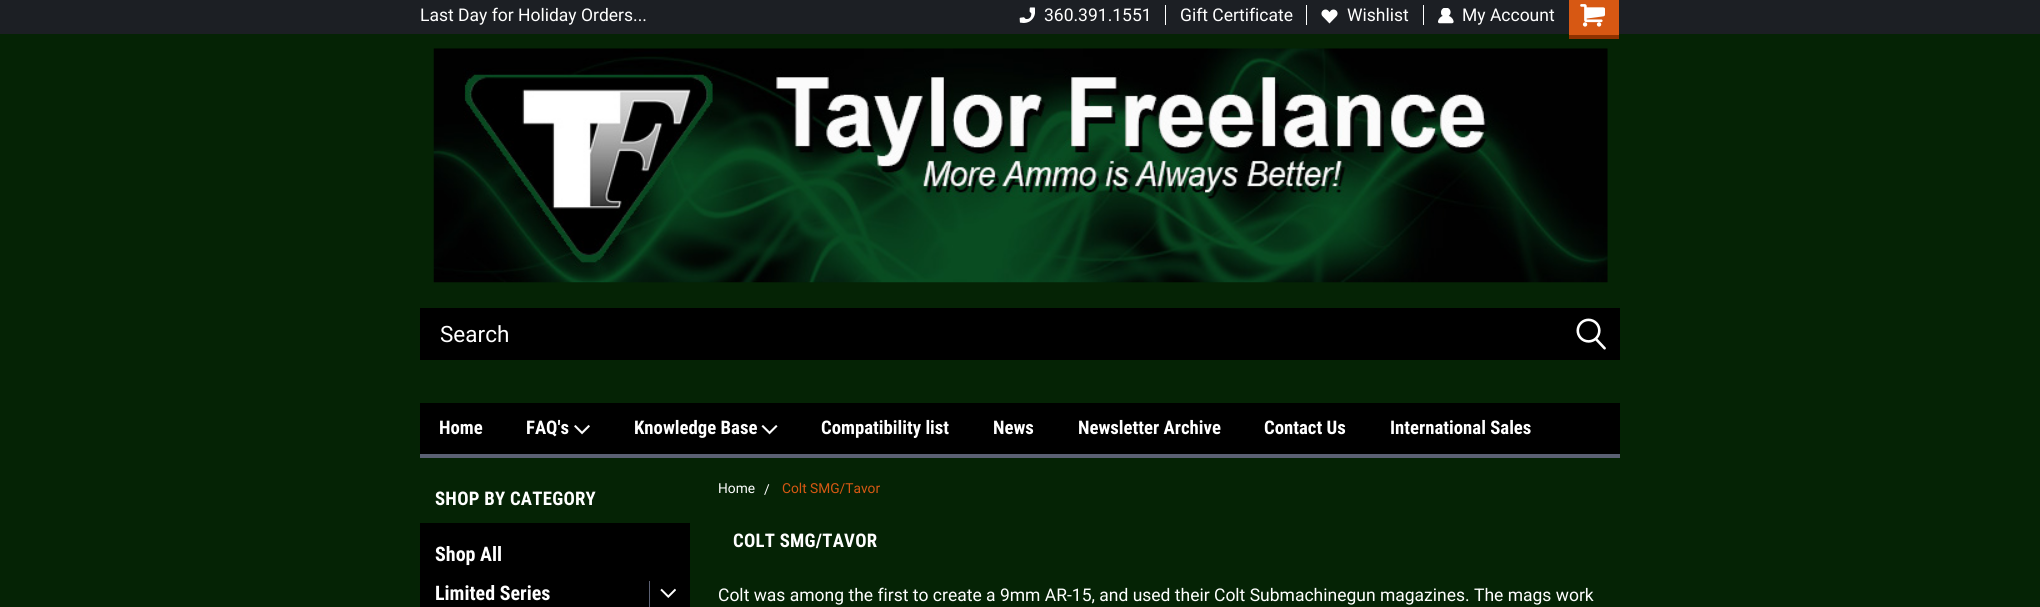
import math
import cairo

surface = cairo.ImageSurface(cairo.FORMAT_RGB24, 2040, 607)
cr = cairo.Context(surface)
options = cairo.FontOptions()
options.set_hint_metrics(cairo.HINT_METRICS_OFF)
options.set_hint_style(cairo.HINT_STYLE_NONE)
cr.set_font_options(options)
cr.set_miter_limit(4)


def rgb(code):
    cr.set_source_rgb(*(v / 255 for v in bytes.fromhex(code[-6:])))


def tracked(x, y, s, letter, word):
    cr.move_to(x, y)
    for ch in s:
        cr.show_text(ch)
        cr.rel_move_to(letter + word * (ch == ' '), 0)


def image(path, x, y, w, h):
    cr.save()
    cr.set_source_surface(cairo.ImageSurface.create_from_png(path), x, y)
    cr.rectangle(x, y, w, h)
    cr.fill()
    cr.restore()


rgb("#052305")
cr.paint()
rgb("#1c1f24")
cr.rectangle(0, 0, 2040, 34)
cr.fill()
rgb("#ffffff")
cr.rectangle(1165, 5, 1, 20)
cr.fill()
image("img/1.png", 1019, 7, 16, 16)
cr.rectangle(1306, 5, 1, 20)
cr.fill()
cr.rectangle(1423, 5, 1, 20)
cr.fill()
image("img/2.png", 1321, 9, 17, 15)
image("img/3.png", 1438, 8, 16, 16)
rgb("#d75813")
cr.rectangle(1569, 0, 50, 35)
cr.fill()
rgb("#8f3200")
cr.rectangle(1569, 35, 50, 4)
cr.fill()
image("img/4.png", 1580, 4, 25, 23)
image("img/5.png", 433, 48, 1175, 235)
rgb("#000000")
cr.rectangle(420, 308, 1200, 52)
cr.fill()
image("img/6.png", 1576, 318, 30, 32)
cr.rectangle(420, 403, 1200, 51)
cr.fill()
rgb("#5b6073")
cr.rectangle(420, 454, 1200, 4)
cr.fill()
image("img/7.png", 574, 425, 16, 10)
image("img/8.png", 761, 425, 17, 10)
rgb("#000000")
cr.rectangle(420, 523, 270, 84)
cr.fill()
rgb("#5b6073")
cr.rectangle(649, 581, 1, 26)
cr.fill()
image("img/9.png", 660, 588, 16, 10)
cr.select_font_face("Roboto")
cr.set_font_size(17.5)
rgb("#ffffff")
for x, y, s in [
    (420, 21, "Last Day for Holiday Orders..."),
    (1044, 21, "360.391.1551"),
    (1180, 21, "Gift Certificate"),
    (1347, 21, "Wishlist"),
    (1462, 21, "My Account"),
]:
    cr.move_to(x, y)
    cr.show_text(s)
cr.set_font_size(22.5)
cr.move_to(440, 342)
cr.show_text("Search")
cr.select_font_face("Roboto Condensed", cairo.FONT_SLANT_NORMAL, cairo.FONT_WEIGHT_BOLD)
cr.set_font_size(18.75)
for x, y, s in [
    (439, 434, "Home"),
    (526, 434, "FAQ's"),
    (634, 434, "Knowledge Base"),
    (821, 434, "Compatibility list"),
    (993, 434, "News"),
    (1078, 434, "Newsletter Archive"),
    (1264, 434, "Contact Us"),
    (1390, 434, "International Sales"),
]:
    cr.move_to(x, y)
    cr.show_text(s)
tracked(435, 505, "SHOP BY CATEGORY", 0.25, 0)
cr.set_font_size(20)
cr.move_to(435, 561)
cr.show_text("Shop All")
cr.move_to(435, 600)
cr.show_text("Limited Series")
cr.select_font_face("Roboto")
cr.set_font_size(13.75)
cr.move_to(718, 493)
cr.show_text("Home")
cr.move_to(764, 494)
cr.show_text("/")
rgb("#d75813")
cr.move_to(782, 493)
cr.show_text("Colt SMG/Tavor")
cr.select_font_face("Roboto Condensed", cairo.FONT_SLANT_NORMAL, cairo.FONT_WEIGHT_BOLD)
cr.set_font_size(18.75)
rgb("#ffffff")
tracked(733, 547, "COLT SMG/TAVOR", 0.25, 0)
cr.select_font_face("Roboto")
cr.set_font_size(17.5)
cr.move_to(718, 601)
cr.show_text("Colt was among the first to create a 9mm AR-15, and used their Colt Submachinegun magazines. The mags work")
surface.write_to_png("page.png")
